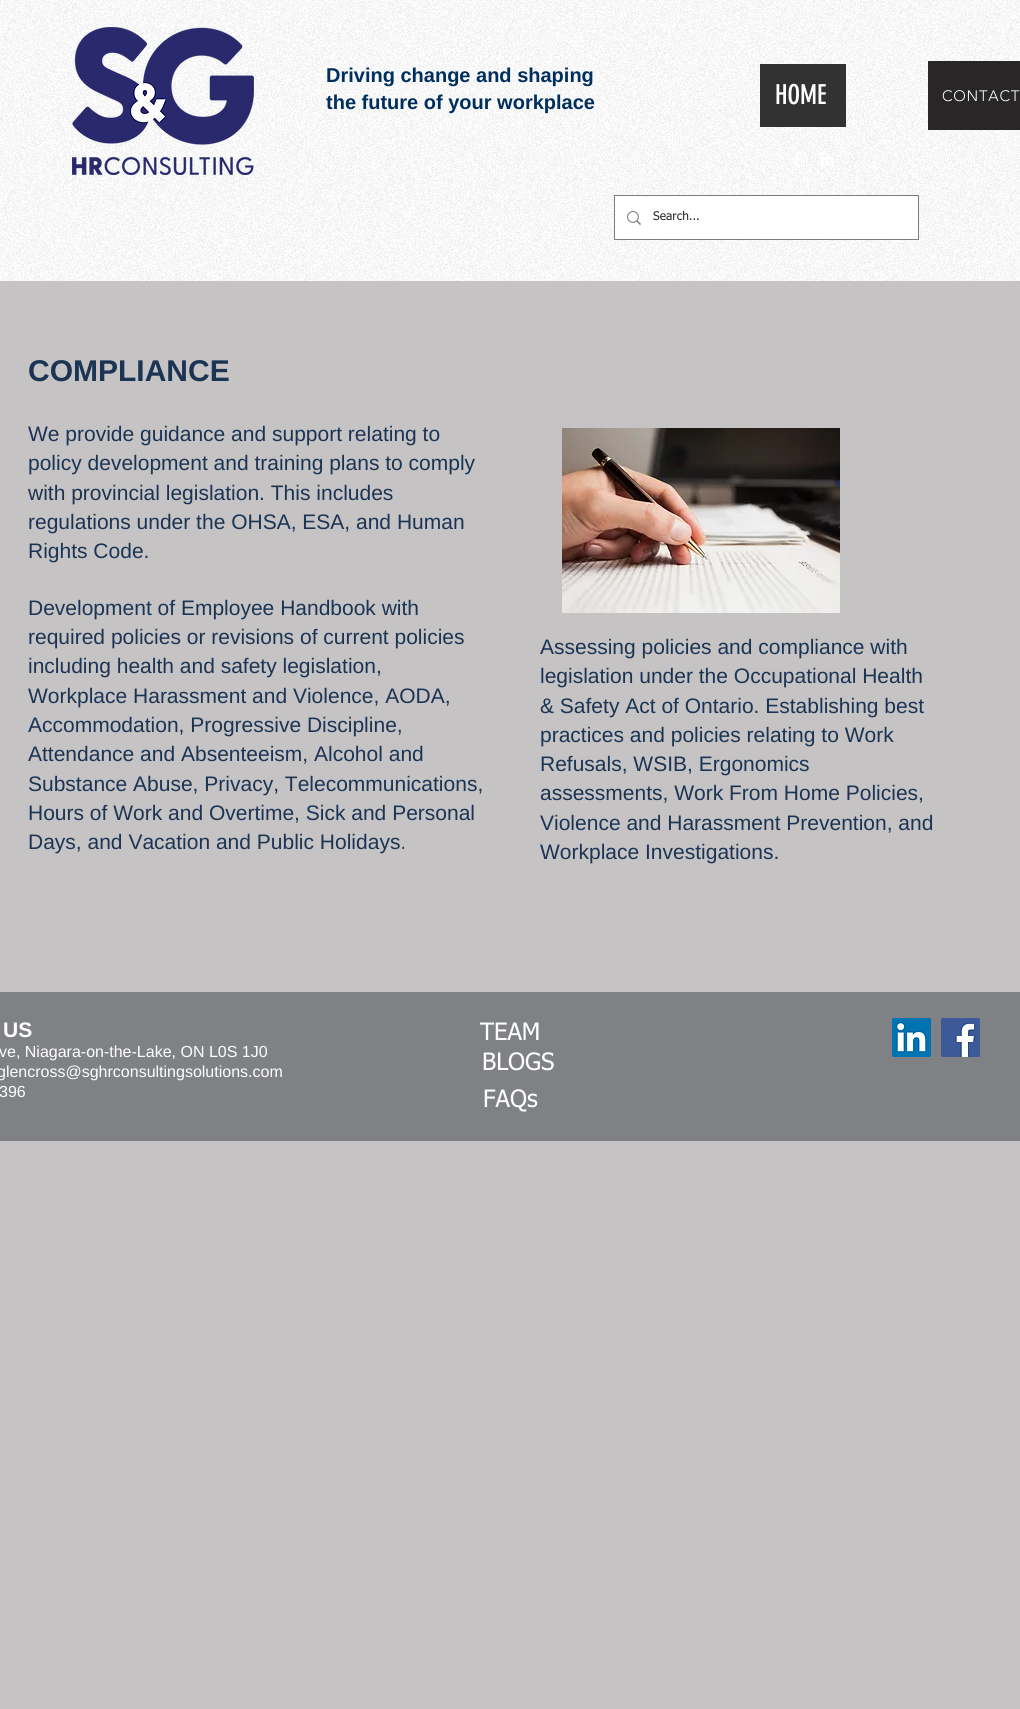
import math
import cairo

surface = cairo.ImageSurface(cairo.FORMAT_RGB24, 1020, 1709)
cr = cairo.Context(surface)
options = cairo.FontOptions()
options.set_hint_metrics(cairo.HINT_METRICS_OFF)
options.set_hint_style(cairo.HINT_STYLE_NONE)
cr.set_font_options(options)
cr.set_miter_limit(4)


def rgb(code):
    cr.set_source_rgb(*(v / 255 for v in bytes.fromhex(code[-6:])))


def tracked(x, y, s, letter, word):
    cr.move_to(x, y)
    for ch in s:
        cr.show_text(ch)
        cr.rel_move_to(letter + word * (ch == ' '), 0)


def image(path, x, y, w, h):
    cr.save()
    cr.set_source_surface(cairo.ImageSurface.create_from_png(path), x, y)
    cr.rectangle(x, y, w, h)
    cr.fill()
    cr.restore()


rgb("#c5c3c3")
cr.paint()
rgb("#ffffff")
cr.rectangle(0, 0, 1020, 281)
cr.fill()
image("img/1.png", 0, 0, 1020, 281)
image("img/2.png", 72, 27, 182, 148)
rgb("#323232")
cr.rectangle(760, 64, 86, 63)
cr.fill()
rgb("#282626")
cr.rectangle(928, 61, 92, 69)
cr.fill()
image("img/3.png", 793, 151, 8, 16)
image("img/4.png", 820, 152, 14, 14)
cr.rectangle(614.5, 195.5, 304, 44)
cr.set_source_rgba(0.165, 0.169, 0.173, 0.6)
cr.set_line_width(1)
cr.stroke()
rgb("#ffffff")
cr.rectangle(615, 196, 303, 43)
cr.fill()
image("img/5.png", 627, 211, 14, 14)
image("img/6.png", 562, 428, 278, 185)
rgb("#7f8184")
cr.rectangle(0, 992, 1020, 149)
cr.fill()
image("img/7.png", 892, 1018, 39, 39)
image("img/8.png", 941, 1018, 39, 39)
cr.select_font_face("Liberation Sans", cairo.FONT_SLANT_NORMAL, cairo.FONT_WEIGHT_BOLD)
cr.set_font_size(20)
rgb("#002e5d")
cr.move_to(326, 82)
cr.show_text("Driving change and shaping")
cr.move_to(326, 109)
cr.show_text("the future of your workplace")
cr.select_font_face("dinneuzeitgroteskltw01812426")
cr.set_font_size(27)
rgb("#ffffff")
cr.move_to(775, 104)
cr.show_text("HOME")
cr.select_font_face("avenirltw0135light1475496 Light")
cr.set_font_size(15)
tracked(942, 101, "CONTACT", 0.75, 0)
cr.select_font_face("tahoma")
cr.set_font_size(12)
rgb("#2a2b2c")
cr.move_to(653, 220)
cr.show_text("Search...")
cr.select_font_face("Liberation Sans", cairo.FONT_SLANT_NORMAL, cairo.FONT_WEIGHT_BOLD)
cr.set_font_size(30)
rgb("#1b3454")
cr.move_to(28, 381)
cr.show_text("COMPLIANCE")
cr.select_font_face("Liberation Sans")
cr.set_font_size(21)
for x, y, s in [
    (28, 441, "We provide guidance and support relating to"),
    (28, 470, "policy development and training plans to comply"),
    (28, 500, "with provincial legislation. This includes"),
    (28, 529, "regulations under the OHSA, ESA, and Human"),
    (28, 558, "Rights Code."),
    (28, 615, "Development of Employee Handbook with"),
    (28, 644, "required policies or revisions of current policies"),
    (28, 673, "including health and safety legislation,"),
    (28, 703, "Workplace Harassment and Violence, AODA,"),
    (28, 732, "Accommodation, Progressive Discipline,"),
    (28, 761, "Attendance and Absenteeism, Alcohol and"),
    (28, 791, "Substance Abuse, Privacy, Telecommunications,"),
    (28, 820, "Hours of Work and Overtime, Sick and Personal"),
    (28, 849, "Days, and Vacation and Public Holidays."),
    (540, 654, "Assessing policies and compliance with"),
    (540, 683, "legislation under the Occupational Health"),
    (540, 713, "& Safety Act of Ontario. Establishing best"),
    (540, 742, "practices and policies relating to Work"),
    (540, 771, "Refusals, WSIB, Ergonomics"),
    (540, 800, "assessments, Work From Home Policies,"),
    (540, 830, "Violence and Harassment Prevention, and"),
    (540, 859, "Workplace Investigations."),
]:
    cr.move_to(x, y)
    cr.show_text(s)
cr.select_font_face("Liberation Sans", cairo.FONT_SLANT_NORMAL, cairo.FONT_WEIGHT_BOLD)
rgb("#ffffff")
cr.move_to(3, 1037)
cr.show_text("US")
cr.select_font_face("Liberation Sans")
cr.set_font_size(16)
for x, y, s in [
    (-1, 1057, "ve, Niagara-on-the-Lake, ON L0S 1J0"),
    (-3, 1077, "glencross@sghrconsultingsolutions.com"),
    (-1, 1097, "396"),
]:
    cr.move_to(x, y)
    cr.show_text(s)
cr.select_font_face("tahoma")
cr.set_font_size(24)
for x, y, s in [
    (480, 1040, "TEAM"),
    (482, 1070, "BLOGS"),
    (483, 1107, "FAQs"),
]:
    cr.move_to(x, y)
    cr.show_text(s)
surface.write_to_png("page.png")
